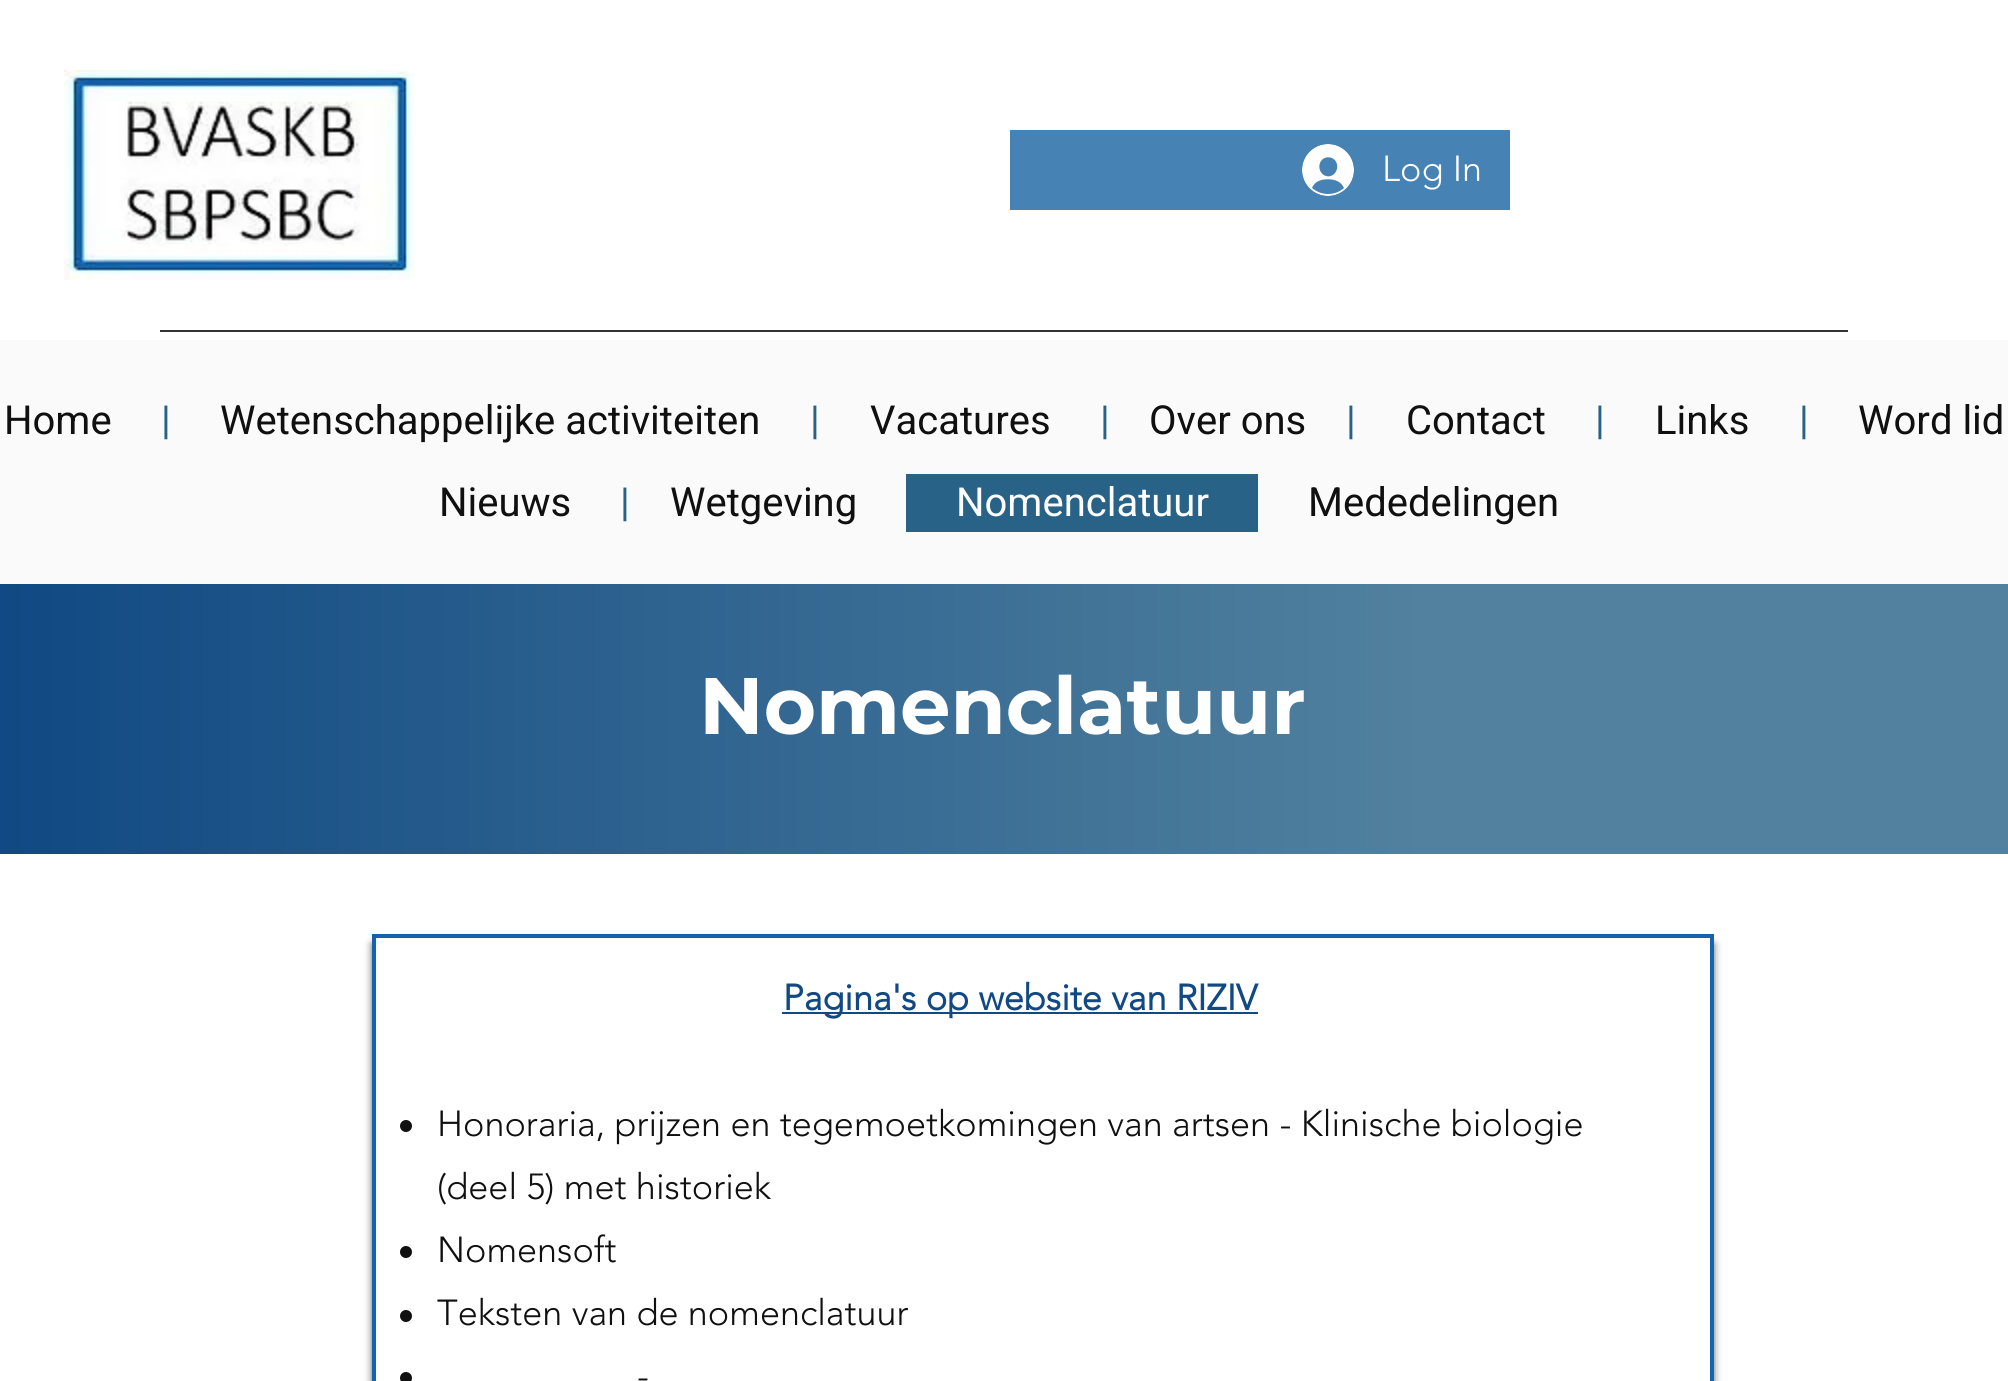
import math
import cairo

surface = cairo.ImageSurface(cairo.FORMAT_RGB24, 2008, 1381)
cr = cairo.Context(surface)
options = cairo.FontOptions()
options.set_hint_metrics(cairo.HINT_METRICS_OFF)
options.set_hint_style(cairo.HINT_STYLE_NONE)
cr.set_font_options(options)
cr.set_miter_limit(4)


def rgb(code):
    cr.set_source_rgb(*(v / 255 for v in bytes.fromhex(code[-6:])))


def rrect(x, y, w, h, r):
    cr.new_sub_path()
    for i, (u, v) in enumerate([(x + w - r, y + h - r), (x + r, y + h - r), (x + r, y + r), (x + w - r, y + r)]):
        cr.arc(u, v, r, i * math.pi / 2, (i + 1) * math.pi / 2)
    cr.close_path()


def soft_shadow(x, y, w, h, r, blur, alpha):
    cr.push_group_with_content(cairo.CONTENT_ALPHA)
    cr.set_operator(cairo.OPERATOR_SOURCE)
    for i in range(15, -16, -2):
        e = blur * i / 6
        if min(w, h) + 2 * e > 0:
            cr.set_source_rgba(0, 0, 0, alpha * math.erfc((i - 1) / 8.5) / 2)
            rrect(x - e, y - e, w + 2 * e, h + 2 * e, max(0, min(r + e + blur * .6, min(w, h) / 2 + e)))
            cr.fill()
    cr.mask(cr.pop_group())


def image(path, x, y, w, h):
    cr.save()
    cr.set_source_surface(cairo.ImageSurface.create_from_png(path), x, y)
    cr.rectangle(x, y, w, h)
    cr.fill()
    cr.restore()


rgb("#ffffff")
cr.paint()
image("img/1.png", 64, 70, 350, 210)
rgb("#4682b4")
cr.rectangle(1010, 130, 500, 80)
cr.fill()
image("img/2.png", 1302, 144, 52, 52)
for x, y, w, h, color in [
    (160, 330, 1688, 2, "#343434"),
    (0, 340, 2008, 244, "#fafafa"),
    (906, 474, 352, 58, "#286387"),
]:
    rgb(color)
    cr.rectangle(x, y, w, h)
    cr.fill()
gradient = cairo.LinearGradient(0, 719, 2008, 719)
gradient.add_color_stop_rgba(0, 0.063, 0.286, 0.514, 1)
gradient.add_color_stop_rgba(0.71, 0.318, 0.506, 0.62, 1)
cr.set_source(gradient)
cr.rectangle(0, 584, 2008, 270)
cr.fill()
cr.save()
cr.set_fill_rule(cairo.FILL_RULE_EVEN_ODD)
cr.new_path()
cr.move_to(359, 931)
cr.line_to(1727, 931)
cr.line_to(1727, 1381)
cr.line_to(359, 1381)
cr.close_path()
cr.move_to(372, 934)
cr.line_to(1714, 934)
cr.line_to(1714, 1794)
cr.line_to(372, 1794)
cr.close_path()
cr.clip()
rgb("#000000")
soft_shadow(372, 944, 1342, 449, 0, 4, 0.6)
cr.restore()
cr.rectangle(374, 936, 1338, 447)
rgb("#1562af")
cr.set_line_width(4)
cr.stroke()
rgb("#104983")
cr.rectangle(782, 1012, 476, 2)
cr.fill()
rgb("#101010")
cr.arc(406, 1126, 6, 0, 2 * math.pi)
cr.fill()
cr.arc(406, 1252, 6, 0, 2 * math.pi)
cr.fill()
cr.arc(406, 1316, 6, 0, 2 * math.pi)
cr.fill()
cr.arc(406, 1378, 6, 0, 2 * math.pi)
cr.fill()
cr.select_font_face("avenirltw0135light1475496 Light")
cr.set_font_size(36)
rgb("#ffffff")
cr.move_to(1382, 181)
cr.show_text("Log In")
cr.select_font_face("Heebo")
cr.set_font_size(40)
rgb("#101010")
cr.move_to(4, 434)
cr.show_text("Home")
rgb("#286387")
cr.move_to(161, 434)
cr.show_text("|")
rgb("#101010")
cr.move_to(220, 434)
cr.show_text("Wetenschappelijke activiteiten")
rgb("#286387")
cr.move_to(810, 434)
cr.show_text("|")
rgb("#101010")
cr.move_to(870, 434)
cr.show_text("Vacatures")
rgb("#286387")
cr.move_to(1100, 434)
cr.show_text("|")
rgb("#101010")
cr.move_to(1149, 434)
cr.show_text("Over ons")
rgb("#286387")
cr.move_to(1346, 434)
cr.show_text("|")
rgb("#101010")
cr.move_to(1406, 434)
cr.show_text("Contact")
rgb("#286387")
cr.move_to(1595, 434)
cr.show_text("|")
rgb("#101010")
cr.move_to(1655, 434)
cr.show_text("Links")
rgb("#286387")
cr.move_to(1799, 434)
cr.show_text("|")
rgb("#101010")
cr.move_to(1858, 434)
cr.show_text("Word lid")
cr.move_to(439, 516)
cr.show_text("Nieuws")
rgb("#286387")
cr.move_to(620, 516)
cr.show_text("|")
rgb("#101010")
cr.move_to(670, 516)
cr.show_text("Wetgeving")
rgb("#ffffff")
cr.move_to(956, 516)
cr.show_text("Nomenclatuur")
rgb("#101010")
cr.move_to(1308, 516)
cr.show_text("Mededelingen")
cr.select_font_face("Montserrat", cairo.FONT_SLANT_NORMAL, cairo.FONT_WEIGHT_BOLD)
cr.set_font_size(80)
rgb("#ffffff")
cr.move_to(699, 734)
cr.show_text("Nomenclatuur")
cr.select_font_face("avenirltw0135light1475496", cairo.FONT_SLANT_NORMAL, cairo.FONT_WEIGHT_BOLD)
cr.set_font_size(36)
rgb("#104983")
cr.move_to(783, 1010)
cr.show_text("Pagina's op website van RIZIV")
cr.select_font_face("avenirltw0135light1475496 Light")
rgb("#101010")
for x, y, s in [
    (437, 1136, "Honoraria, prijzen en tegemoetkomingen van artsen - Klinische biologie"),
    (437, 1199, "(deel 5) met historiek"),
    (437, 1262, "Nomensoft"),
    (437, 1325, "Teksten van de nomenclatuur"),
    (637, 1388, "-"),
]:
    cr.move_to(x, y)
    cr.show_text(s)
surface.write_to_png("page.png")
